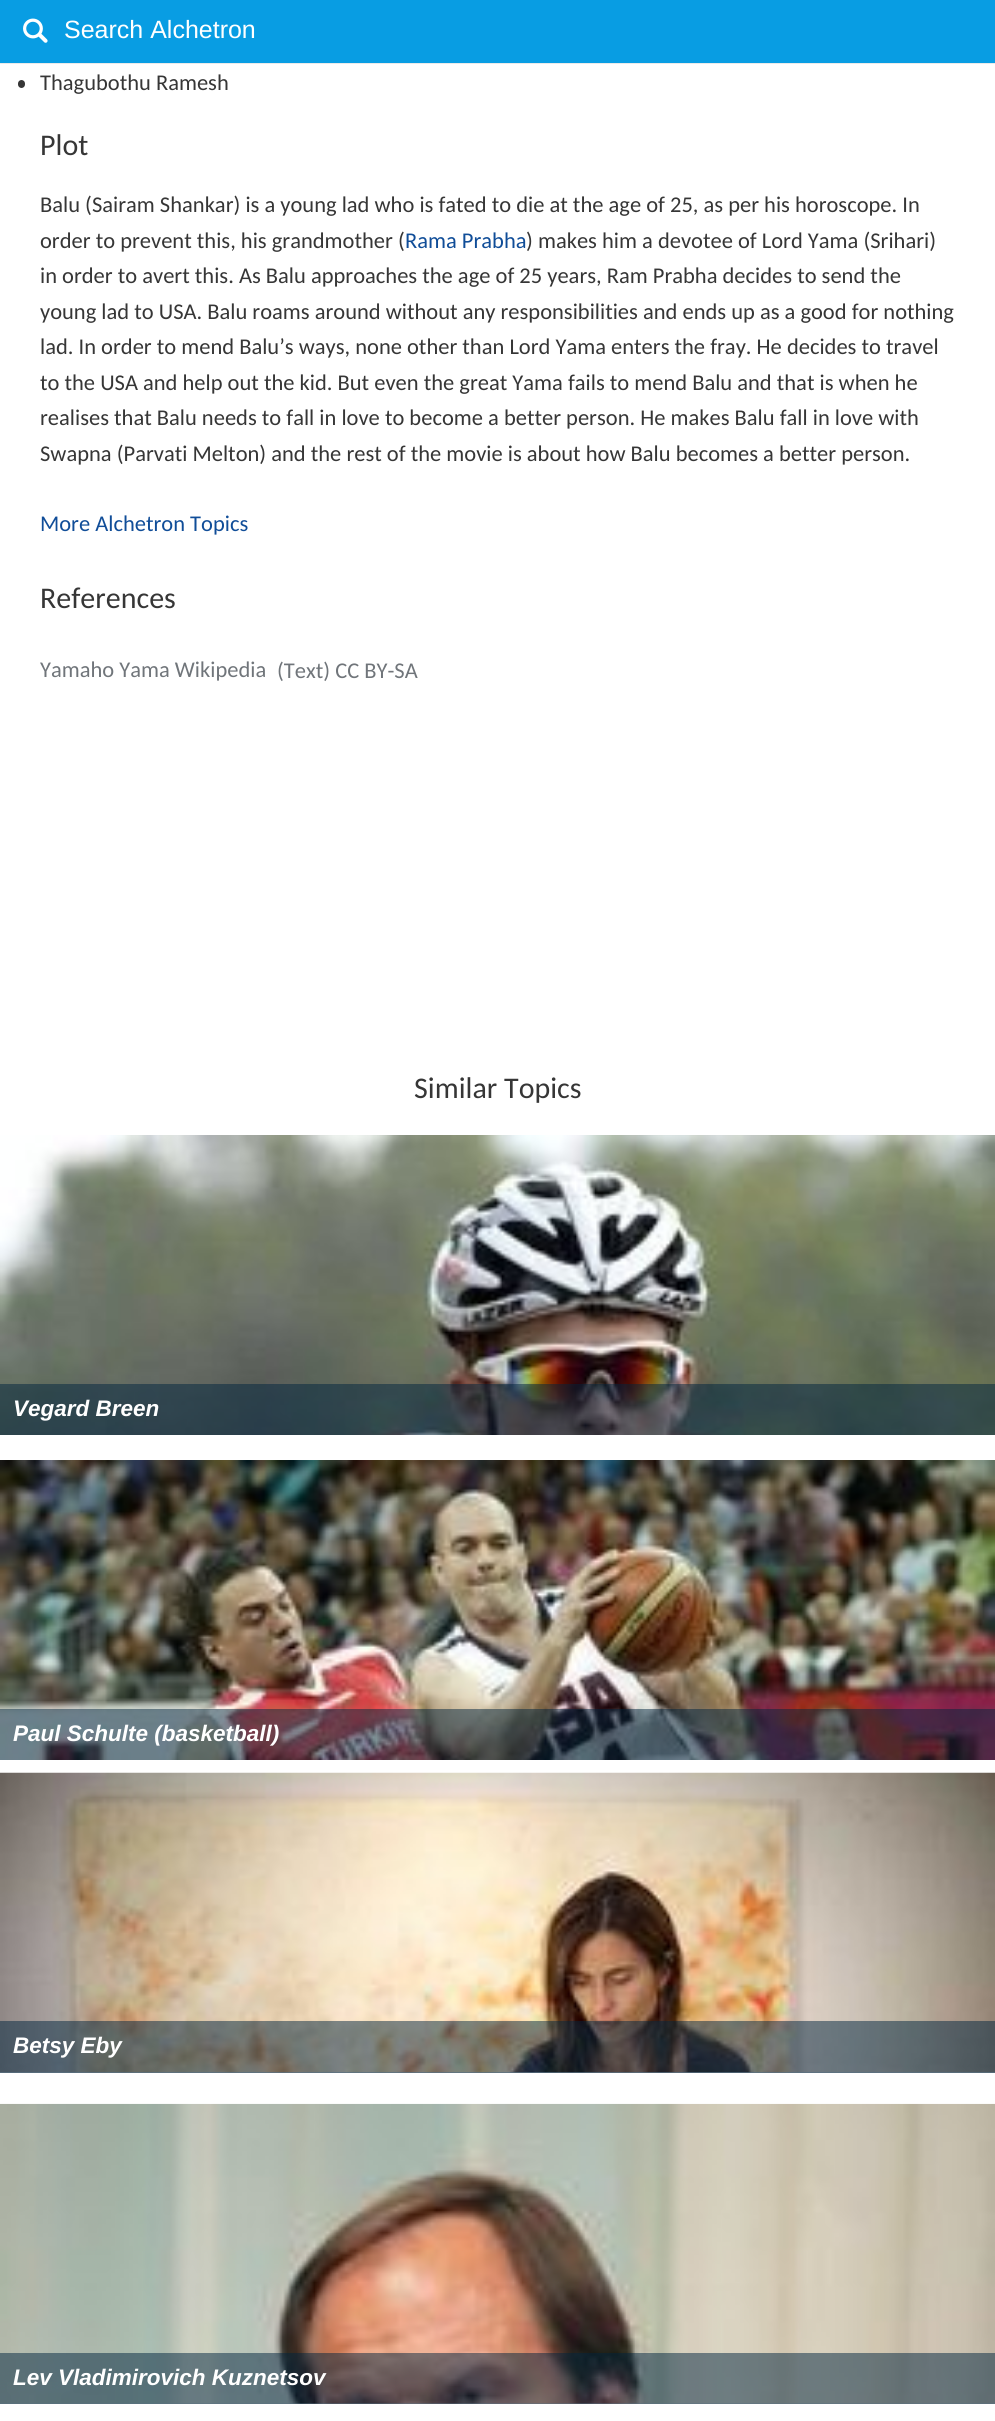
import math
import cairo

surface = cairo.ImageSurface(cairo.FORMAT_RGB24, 995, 2421)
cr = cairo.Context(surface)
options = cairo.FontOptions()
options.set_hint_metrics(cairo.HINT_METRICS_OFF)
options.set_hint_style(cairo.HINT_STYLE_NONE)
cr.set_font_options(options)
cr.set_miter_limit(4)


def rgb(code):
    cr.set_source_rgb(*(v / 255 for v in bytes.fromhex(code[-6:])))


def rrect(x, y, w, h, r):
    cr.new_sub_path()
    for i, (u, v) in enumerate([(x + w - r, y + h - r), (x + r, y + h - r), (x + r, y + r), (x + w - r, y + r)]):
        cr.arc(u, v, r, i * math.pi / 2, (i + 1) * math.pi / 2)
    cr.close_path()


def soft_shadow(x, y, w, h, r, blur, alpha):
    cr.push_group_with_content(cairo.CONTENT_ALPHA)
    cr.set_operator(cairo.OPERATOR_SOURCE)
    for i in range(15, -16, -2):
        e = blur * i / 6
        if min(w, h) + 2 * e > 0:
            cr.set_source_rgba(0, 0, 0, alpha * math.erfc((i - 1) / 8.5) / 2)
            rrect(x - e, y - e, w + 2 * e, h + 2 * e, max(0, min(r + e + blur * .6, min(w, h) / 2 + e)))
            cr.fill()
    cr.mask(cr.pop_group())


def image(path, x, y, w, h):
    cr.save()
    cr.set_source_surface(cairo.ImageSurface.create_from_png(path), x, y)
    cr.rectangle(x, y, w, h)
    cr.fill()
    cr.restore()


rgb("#ffffff")
cr.paint()
rgb("#aaaaaa")
soft_shadow(0, 0, 995, 63, 0, 0.5, 1)
rgb("#089de3")
cr.rectangle(0, 0, 995, 63)
cr.fill()
image("img/1.png", 23, 18, 25, 25)
rgb("#363636")
rrect(18, 80, 7, 8, 3.5)
cr.fill()
image("img/2.png", 0, 1135, 995, 300)
cr.set_source_rgba(0, 0.141, 0.247, 0.5)
cr.rectangle(0, 1384, 995, 51)
cr.fill()
image("img/3.png", 0, 1460, 995, 300)
cr.rectangle(0, 1709, 995, 51)
cr.fill()
rgb("#b3bec6")
cr.rectangle(0, 2072, 995, 1)
cr.fill()
image("img/4.png", 0, 1772, 995, 301)
cr.set_source_rgba(0, 0.141, 0.247, 0.5)
cr.rectangle(0, 2021, 995, 52)
cr.fill()
rgb("#b3bec6")
cr.rectangle(0, 2403, 995, 1)
cr.fill()
image("img/5.png", 0, 2103, 995, 301)
cr.set_source_rgba(0, 0.141, 0.247, 0.5)
cr.rectangle(0, 2353, 995, 51)
cr.fill()
cr.select_font_face("Liberation Sans")
cr.set_font_size(25)
rgb("#ffffff")
cr.move_to(64, 38)
cr.show_text("Search Alchetron")
cr.select_font_face("Carlito")
cr.set_font_size(22.5)
rgb("#363636")
cr.move_to(40, 90)
cr.show_text("Thagubothu Ramesh")
cr.set_font_size(30)
cr.move_to(40, 155)
cr.show_text("Plot")
cr.set_font_size(22.5)
cr.move_to(40, 212)
cr.show_text("Balu (Sairam Shankar) is a young lad who is fated to die at the age of 25, as per his horoscope. In")
cr.move_to(40, 248)
cr.show_text("order to prevent this, his grandmother (")
rgb("#104d98")
cr.move_to(405, 248)
cr.show_text("Rama Prabha")
rgb("#363636")
for x, y, s in [
    (526, 248, ") makes him a devotee of Lord Yama (Srihari)"),
    (40, 283, "in order to avert this. As Balu approaches the age of 25 years, Ram Prabha decides to send the"),
    (40, 319, "young lad to USA. Balu roams around without any responsibilities and ends up as a good for nothing"),
    (40, 354, "lad. In order to mend Balu’s ways, none other than Lord Yama enters the fray. He decides to travel"),
    (40, 390, "to the USA and help out the kid. But even the great Yama fails to mend Balu and that is when he"),
    (40, 425, "realises that Balu needs to fall in love to become a better person. He makes Balu fall in love with"),
    (40, 461, "Swapna (Parvati Melton) and the rest of the movie is about how Balu becomes a better person."),
]:
    cr.move_to(x, y)
    cr.show_text(s)
rgb("#104d98")
cr.move_to(40, 531)
cr.show_text("More Alchetron Topics")
cr.set_font_size(30)
rgb("#363636")
cr.move_to(40, 608)
cr.show_text("References")
cr.set_font_size(22.5)
rgb("#70757a")
cr.move_to(40, 677)
cr.show_text("Yamaho Yama Wikipedia")
cr.move_to(277, 678)
cr.show_text("(Text) CC BY-SA")
cr.set_font_size(30)
rgb("#363636")
cr.move_to(414, 1098)
cr.show_text("Similar Topics")
cr.select_font_face("Liberation Sans", cairo.FONT_SLANT_ITALIC, cairo.FONT_WEIGHT_BOLD)
cr.set_font_size(22.5)
rgb("#ffffff")
for x, y, s in [
    (13, 1416, "Vegard Breen"),
    (13, 1741, "Paul Schulte (basketball)"),
    (13, 2053, "Betsy Eby"),
    (13, 2385, "Lev Vladimirovich Kuznetsov"),
]:
    cr.move_to(x, y)
    cr.show_text(s)
surface.write_to_png("page.png")
